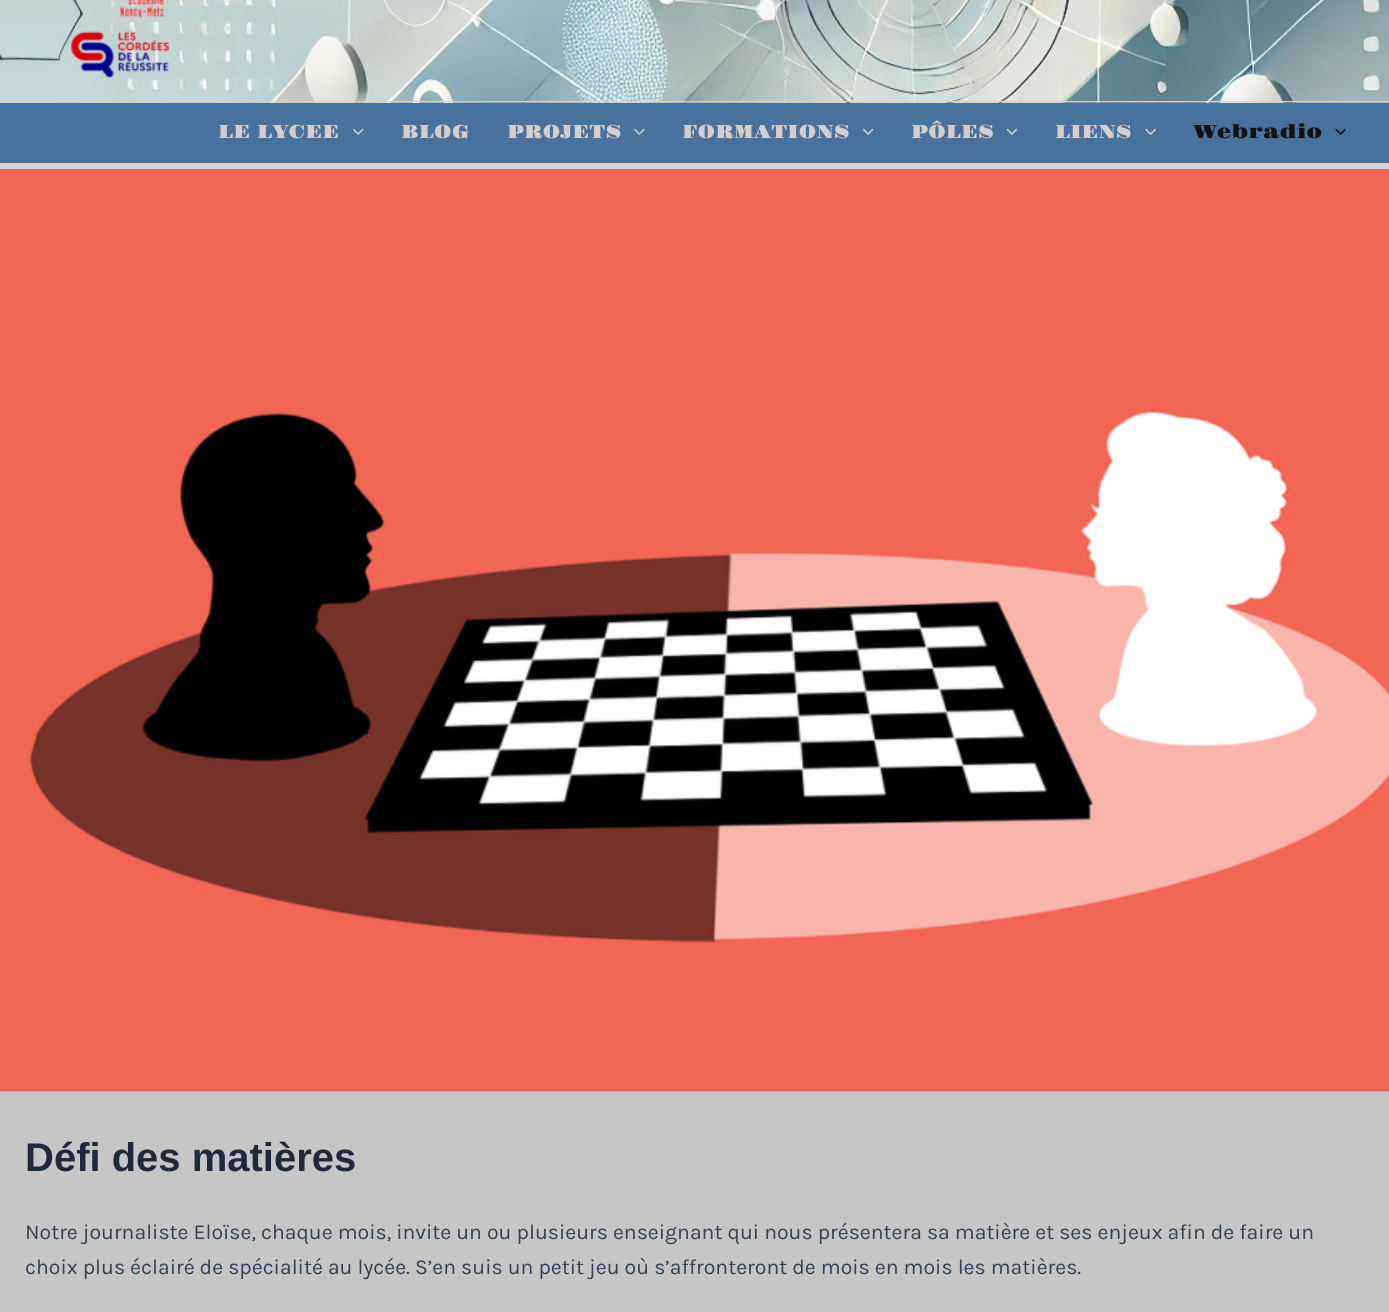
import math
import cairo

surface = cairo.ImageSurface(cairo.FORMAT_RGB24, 1389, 1312)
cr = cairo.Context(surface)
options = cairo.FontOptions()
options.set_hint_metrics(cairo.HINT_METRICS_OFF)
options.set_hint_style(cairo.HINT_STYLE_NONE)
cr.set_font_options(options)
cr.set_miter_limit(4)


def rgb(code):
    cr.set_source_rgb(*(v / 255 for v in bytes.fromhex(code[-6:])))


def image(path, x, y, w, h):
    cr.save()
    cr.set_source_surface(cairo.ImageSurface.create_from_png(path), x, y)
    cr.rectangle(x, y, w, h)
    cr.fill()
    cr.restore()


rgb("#c6c6c6")
cr.paint()
image("img/1.png", 0, 0, 1389, 103)
rgb("#d1d5db")
cr.rectangle(0, 101, 1389, 1)
cr.fill()
image("img/2.png", 70, 0, 100, 78)
rgb("#48729e")
cr.rectangle(0, 103, 1389, 60)
cr.fill()
rgb("#d1d5db")
cr.rectangle(0, 163, 1389, 6)
cr.fill()
image("img/3.png", 353, 128, 11, 7)
image("img/4.png", 634, 128, 11, 7)
image("img/3.png", 863, 128, 11, 7)
image("img/5.png", 1006, 128, 12, 7)
image("img/6.png", 1145, 128, 11, 7)
image("img/7.png", 1335, 128, 11, 7)
image("img/8.png", 0, 169, 1389, 923)
cr.select_font_face("Gravitas One")
cr.set_font_size(18.75)
rgb("#d6cdcd")
for x, y, s in [
    (218, 138, "LE LYCEE"),
    (401, 138, "BLOG"),
    (507, 138, "PROJETS"),
    (682, 138, "FORMATIONS"),
    (911, 138, "PÔLES"),
    (1055, 138, "LIENS"),
]:
    cr.move_to(x, y)
    cr.show_text(s)
rgb("#111111")
cr.move_to(1193, 138)
cr.show_text("Webradio")
cr.select_font_face("Liberation Sans", cairo.FONT_SLANT_NORMAL, cairo.FONT_WEIGHT_BOLD)
cr.set_font_size(40)
rgb("#1e293b")
cr.move_to(25, 1171)
cr.show_text("Défi des matières")
cr.select_font_face("Karla")
cr.set_font_size(21.25)
rgb("#334155")
cr.move_to(25, 1239)
cr.show_text("Notre journaliste Eloïse, chaque mois, invite un ou plusieurs enseignant qui nous présentera sa matière et ses enjeux afin de faire un")
cr.move_to(25, 1274)
cr.show_text("choix plus éclairé de spécialité au lycée. S’en suis un petit jeu où s’affronteront de mois en mois les matières.")
surface.write_to_png("page.png")
